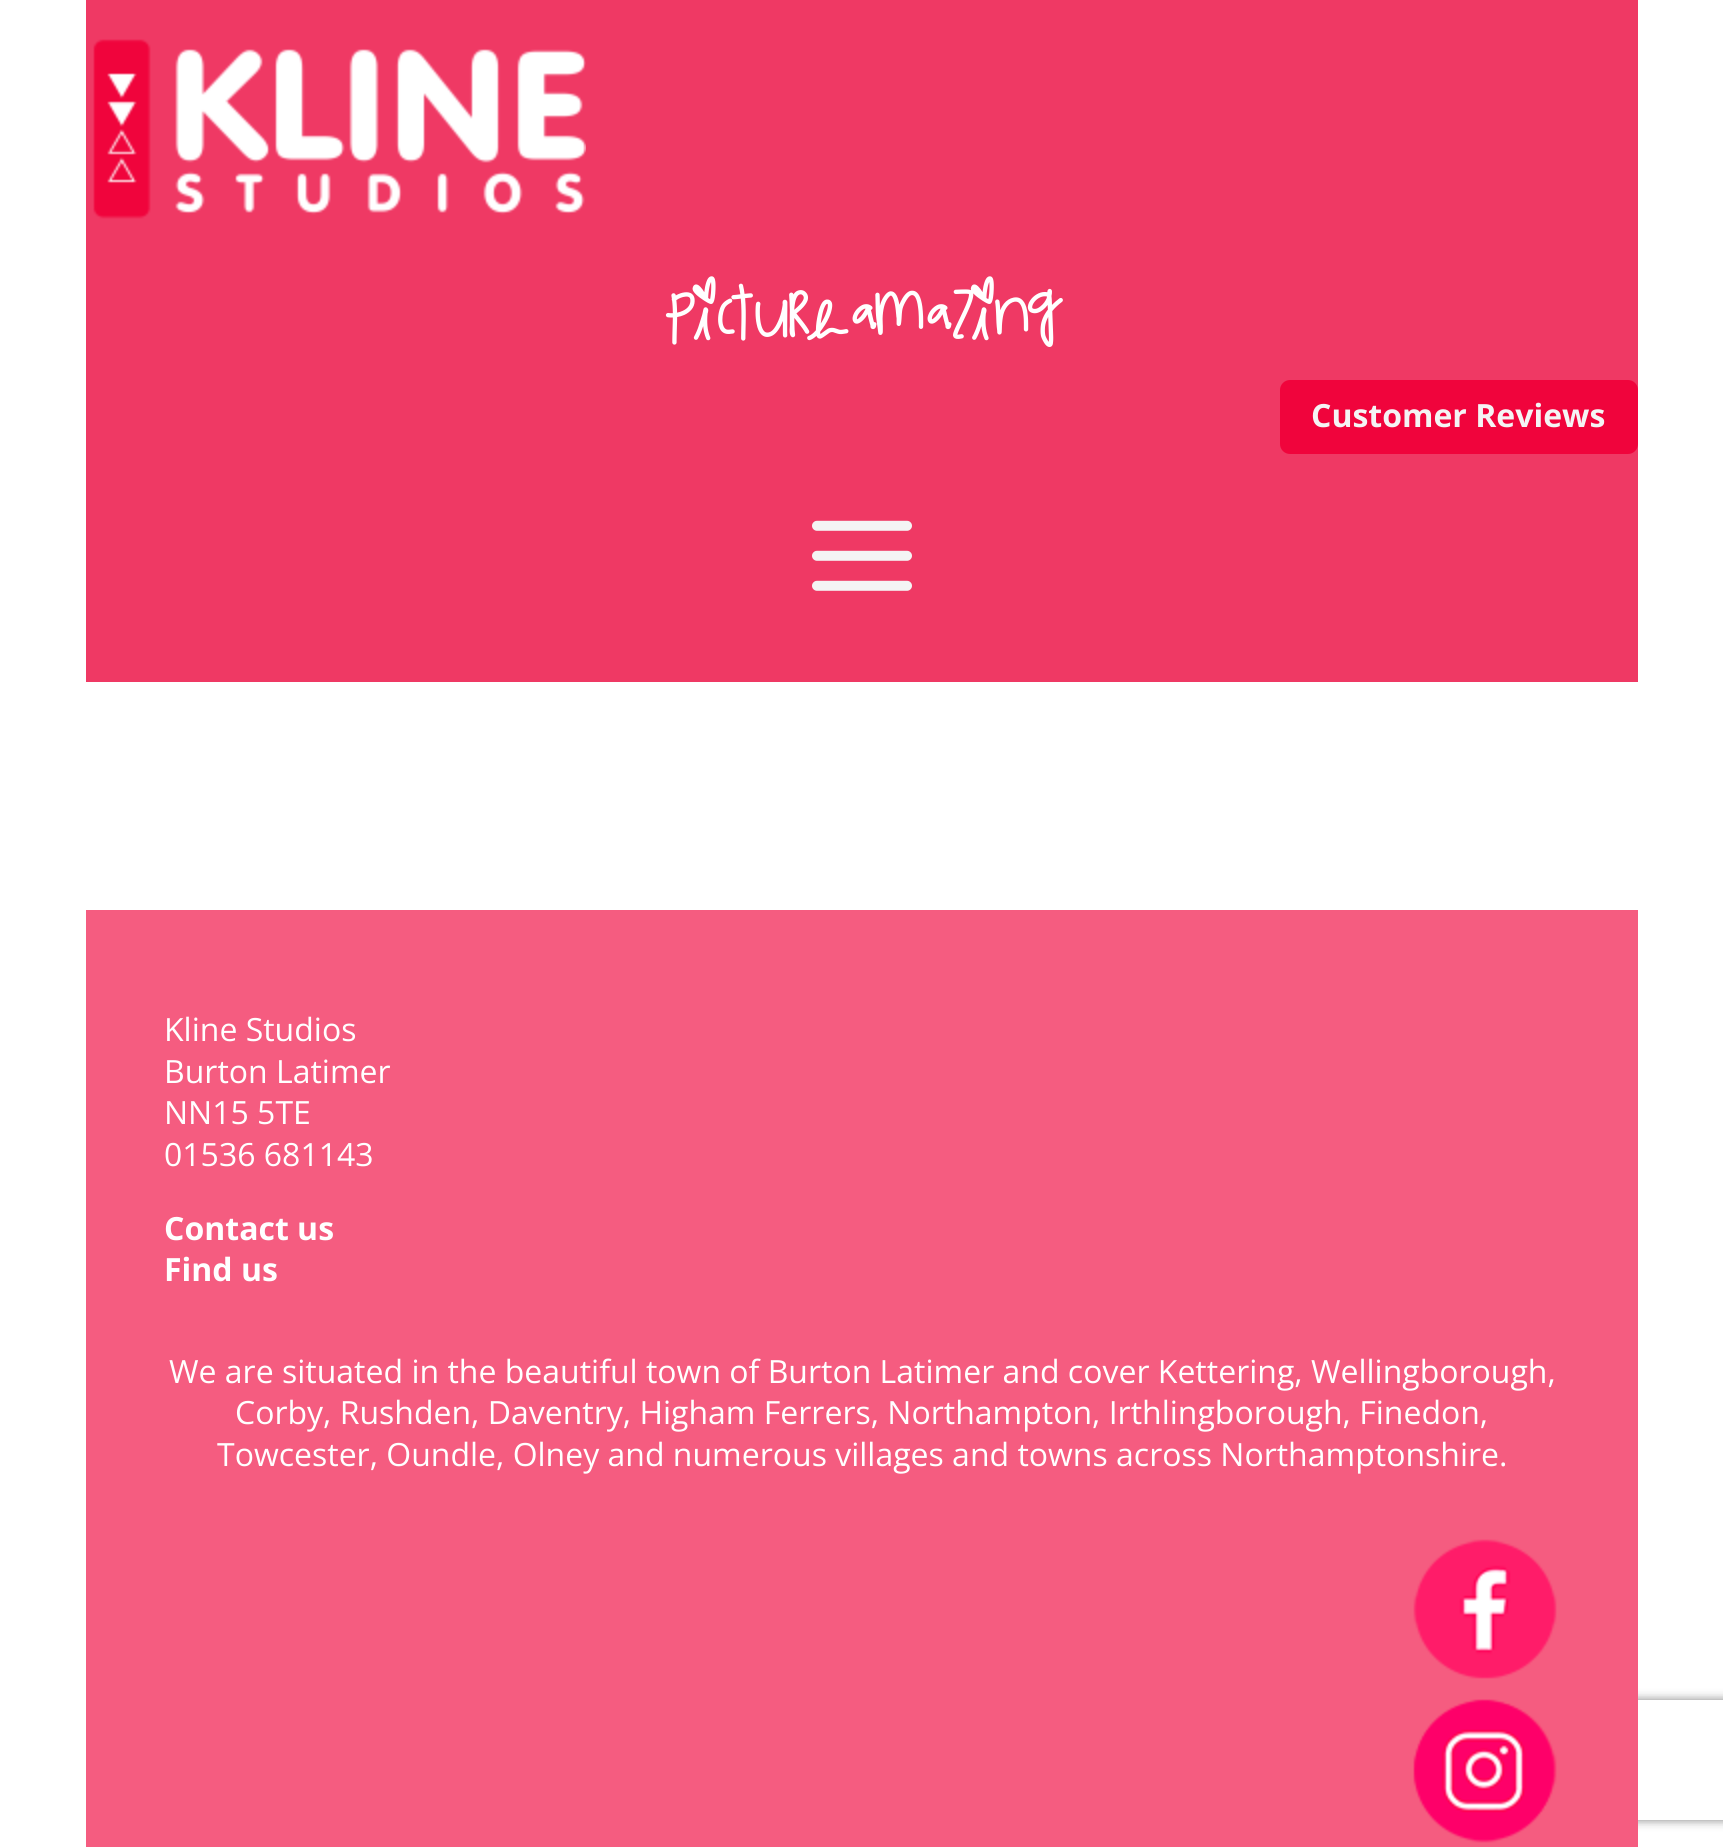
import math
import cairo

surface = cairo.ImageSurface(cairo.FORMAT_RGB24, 1723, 1847)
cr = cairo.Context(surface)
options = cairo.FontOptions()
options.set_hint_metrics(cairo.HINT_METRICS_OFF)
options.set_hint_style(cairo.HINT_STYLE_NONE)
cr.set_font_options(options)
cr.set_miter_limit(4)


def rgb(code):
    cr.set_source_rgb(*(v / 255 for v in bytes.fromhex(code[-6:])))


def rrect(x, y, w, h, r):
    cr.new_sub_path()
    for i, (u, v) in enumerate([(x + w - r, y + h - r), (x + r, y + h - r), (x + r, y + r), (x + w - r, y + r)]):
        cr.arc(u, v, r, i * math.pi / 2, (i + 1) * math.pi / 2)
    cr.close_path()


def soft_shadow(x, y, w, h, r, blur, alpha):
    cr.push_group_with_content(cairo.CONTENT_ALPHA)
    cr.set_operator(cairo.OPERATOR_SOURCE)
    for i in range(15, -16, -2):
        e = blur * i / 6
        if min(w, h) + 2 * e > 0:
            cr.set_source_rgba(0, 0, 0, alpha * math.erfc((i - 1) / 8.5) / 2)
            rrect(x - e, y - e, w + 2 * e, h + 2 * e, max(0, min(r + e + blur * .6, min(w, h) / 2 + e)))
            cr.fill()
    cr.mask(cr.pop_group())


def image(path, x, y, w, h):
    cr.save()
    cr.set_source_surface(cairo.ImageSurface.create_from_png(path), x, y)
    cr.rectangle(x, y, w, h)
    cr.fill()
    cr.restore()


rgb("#ffffff")
cr.paint()
rgb("#ef3964")
cr.rectangle(86, 0, 1552, 682)
cr.fill()
image("img/1.png", 93, 39, 493, 180)
rgb("#f0043c")
rrect(1280, 380, 358, 74, 10)
cr.fill()
image("img/2.png", 812, 520, 100, 71)
cr.save()
cr.set_fill_rule(cairo.FILL_RULE_EVEN_ODD)
cr.new_path()
cr.move_to(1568, 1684)
cr.line_to(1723, 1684)
cr.line_to(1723, 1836)
cr.line_to(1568, 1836)
cr.close_path()
cr.move_to(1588, 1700)
cr.line_to(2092, 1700)
cr.curve_to(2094, 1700, 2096, 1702, 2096, 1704)
cr.line_to(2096, 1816)
cr.curve_to(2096, 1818, 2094, 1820, 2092, 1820)
cr.line_to(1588, 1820)
cr.curve_to(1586, 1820, 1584, 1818, 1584, 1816)
cr.line_to(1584, 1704)
cr.curve_to(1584, 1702, 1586, 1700, 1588, 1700)
cr.close_path()
cr.clip()
rgb("#808080")
soft_shadow(1584, 1700, 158, 120, 4, 5, 1)
cr.restore()
rgb("#f55c80")
cr.rectangle(86, 910, 1552, 937)
cr.fill()
image("img/3.png", 1413, 1539, 144, 140)
image("img/4.png", 1413, 1699, 144, 144)
cr.select_font_face("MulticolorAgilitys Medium")
cr.set_font_size(80)
rgb("#ffffff")
cr.move_to(665, 340)
cr.show_text("PICTUREAMAZING")
cr.select_font_face("Open Sans", cairo.FONT_SLANT_NORMAL, cairo.FONT_WEIGHT_BOLD)
cr.set_font_size(32)
rgb("#f4f4f4")
cr.move_to(1311, 427)
cr.show_text("Customer Reviews")
cr.select_font_face("Open Sans")
rgb("#ffffff")
for x, y, s in [
    (164, 1041, "Kline Studios"),
    (164, 1083, "Burton Latimer"),
    (164, 1124, "NN15 5TE"),
    (164, 1166, "01536 681143"),
]:
    cr.move_to(x, y)
    cr.show_text(s)
cr.select_font_face("Open Sans", cairo.FONT_SLANT_NORMAL, cairo.FONT_WEIGHT_BOLD)
cr.move_to(164, 1240)
cr.show_text("Contact us")
cr.move_to(164, 1281)
cr.show_text("Find us")
cr.select_font_face("Open Sans")
for x, y, s in [
    (169, 1383, "We are situated in the beautiful town of Burton Latimer and cover Kettering, Wellingborough,"),
    (235, 1424, "Corby, Rushden, Daventry, Higham Ferrers, Northampton, Irthlingborough, Finedon,"),
    (217, 1466, "Towcester, Oundle, Olney and numerous villages and towns across Northamptonshire."),
]:
    cr.move_to(x, y)
    cr.show_text(s)
surface.write_to_png("page.png")
